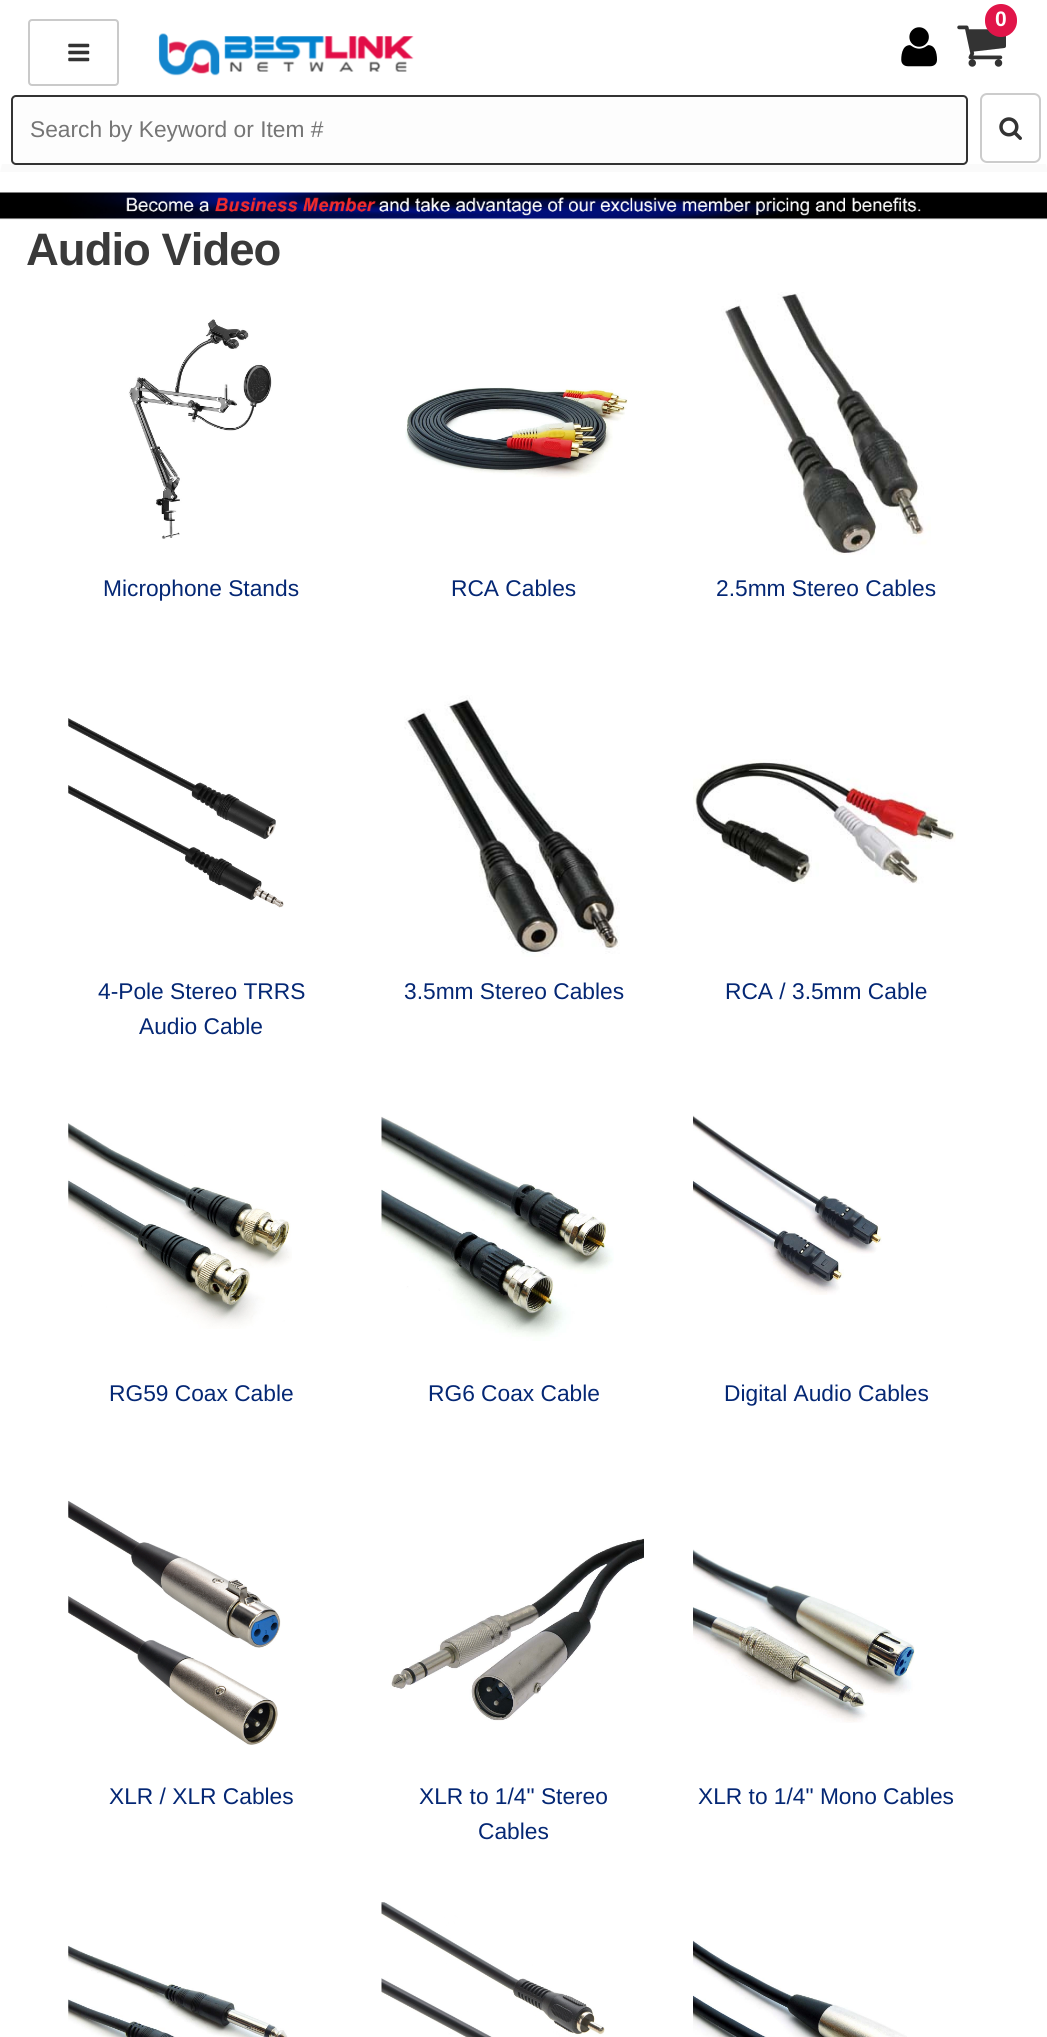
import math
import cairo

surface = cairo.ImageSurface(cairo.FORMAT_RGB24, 1047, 2037)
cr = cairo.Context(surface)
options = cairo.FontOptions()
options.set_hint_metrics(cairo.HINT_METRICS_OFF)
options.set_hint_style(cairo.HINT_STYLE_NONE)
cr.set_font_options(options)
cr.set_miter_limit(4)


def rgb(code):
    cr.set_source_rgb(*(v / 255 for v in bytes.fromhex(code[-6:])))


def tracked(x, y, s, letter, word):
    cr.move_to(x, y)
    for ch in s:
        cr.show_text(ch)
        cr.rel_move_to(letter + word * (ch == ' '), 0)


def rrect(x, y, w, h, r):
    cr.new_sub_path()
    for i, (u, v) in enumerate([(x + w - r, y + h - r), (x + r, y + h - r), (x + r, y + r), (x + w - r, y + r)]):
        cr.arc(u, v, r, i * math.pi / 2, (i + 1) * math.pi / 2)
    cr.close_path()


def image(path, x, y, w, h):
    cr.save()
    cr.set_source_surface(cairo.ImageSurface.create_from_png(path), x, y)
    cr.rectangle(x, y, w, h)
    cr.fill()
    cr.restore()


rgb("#ffffff")
cr.paint()
rgb("#fafafa")
cr.new_path()
cr.move_to(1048, 172)
cr.line_to(0, 172)
cr.line_to(2, 164)
cr.line_to(1046, 164)
cr.close_path()
cr.fill()
rrect(29, 20, 89, 65, 3)
rgb("#cacaca")
cr.stroke()
image("img/1.png", 68, 43, 22, 19)
image("img/2.png", 158, 33, 256, 43)
image("img/3.png", 957, 25, 49, 42)
rgb("#e11549")
rrect(985, 4, 32, 33, 16)
cr.fill()
image("img/4.png", 901, 27, 36, 40)
rgb("#fdfdfd")
rrect(12, 96, 955, 68, 4)
cr.fill_preserve()
rgb("#333333")
cr.stroke()
rrect(981, 94, 59, 68, 6)
rgb("#cccccc")
cr.stroke()
image("img/5.png", 999, 117, 23, 23)
image("img/6.png", 0, 192, 1047, 28)
image("img/7.png", 128, 319, 144, 220)
image("img/8.png", 405, 387, 223, 92)
image("img/9.png", 721, 292, 210, 263)
image("img/10.png", 68, 718, 216, 190)
image("img/11.png", 404, 695, 216, 262)
image("img/12.png", 693, 759, 263, 125)
image("img/13.png", 68, 1123, 224, 206)
image("img/14.png", 381, 1116, 233, 225)
image("img/15.png", 693, 1115, 189, 180)
image("img/16.png", 68, 1500, 213, 245)
image("img/17.png", 390, 1538, 254, 183)
image("img/18.png", 693, 1549, 222, 174)
image("img/19.png", 68, 1945, 220, 92)
image("img/20.png", 381, 1902, 224, 135)
image("img/21.png", 693, 1940, 214, 97)
cr.select_font_face("Liberation Sans", cairo.FONT_SLANT_NORMAL, cairo.FONT_WEIGHT_BOLD)
cr.set_font_size(21)
rgb("#ffffff")
cr.move_to(995, 26)
cr.show_text("0")
cr.select_font_face("Liberation Sans")
cr.set_font_size(22.75)
rgb("#757575")
cr.move_to(30, 137)
cr.show_text("Search by Keyword or Item #")
cr.select_font_face("Liberation Sans", cairo.FONT_SLANT_NORMAL, cairo.FONT_WEIGHT_BOLD)
cr.set_font_size(45.5)
rgb("#3a3a3a")
tracked(26, 265, "Audio Video", -1, 0)
cr.select_font_face("Liberation Sans")
cr.set_font_size(22.75)
rgb("#042774")
for x, y, s in [
    (103, 596, "Microphone Stands"),
    (451, 596, "RCA Cables"),
    (716, 596, "2.5mm Stereo Cables"),
    (98, 999, "4-Pole Stereo TRRS"),
    (139, 1034, "Audio Cable"),
    (404, 999, "3.5mm Stereo Cables"),
    (725, 999, "RCA / 3.5mm Cable"),
    (109, 1401, "RG59 Coax Cable"),
    (428, 1401, "RG6 Coax Cable"),
    (724, 1401, "Digital Audio Cables"),
    (109, 1804, "XLR / XLR Cables"),
    (419, 1804, "XLR to 1/4\" Stereo"),
    (478, 1839, "Cables"),
    (698, 1804, "XLR to 1/4\" Mono Cables"),
]:
    cr.move_to(x, y)
    cr.show_text(s)
surface.write_to_png("page.png")
